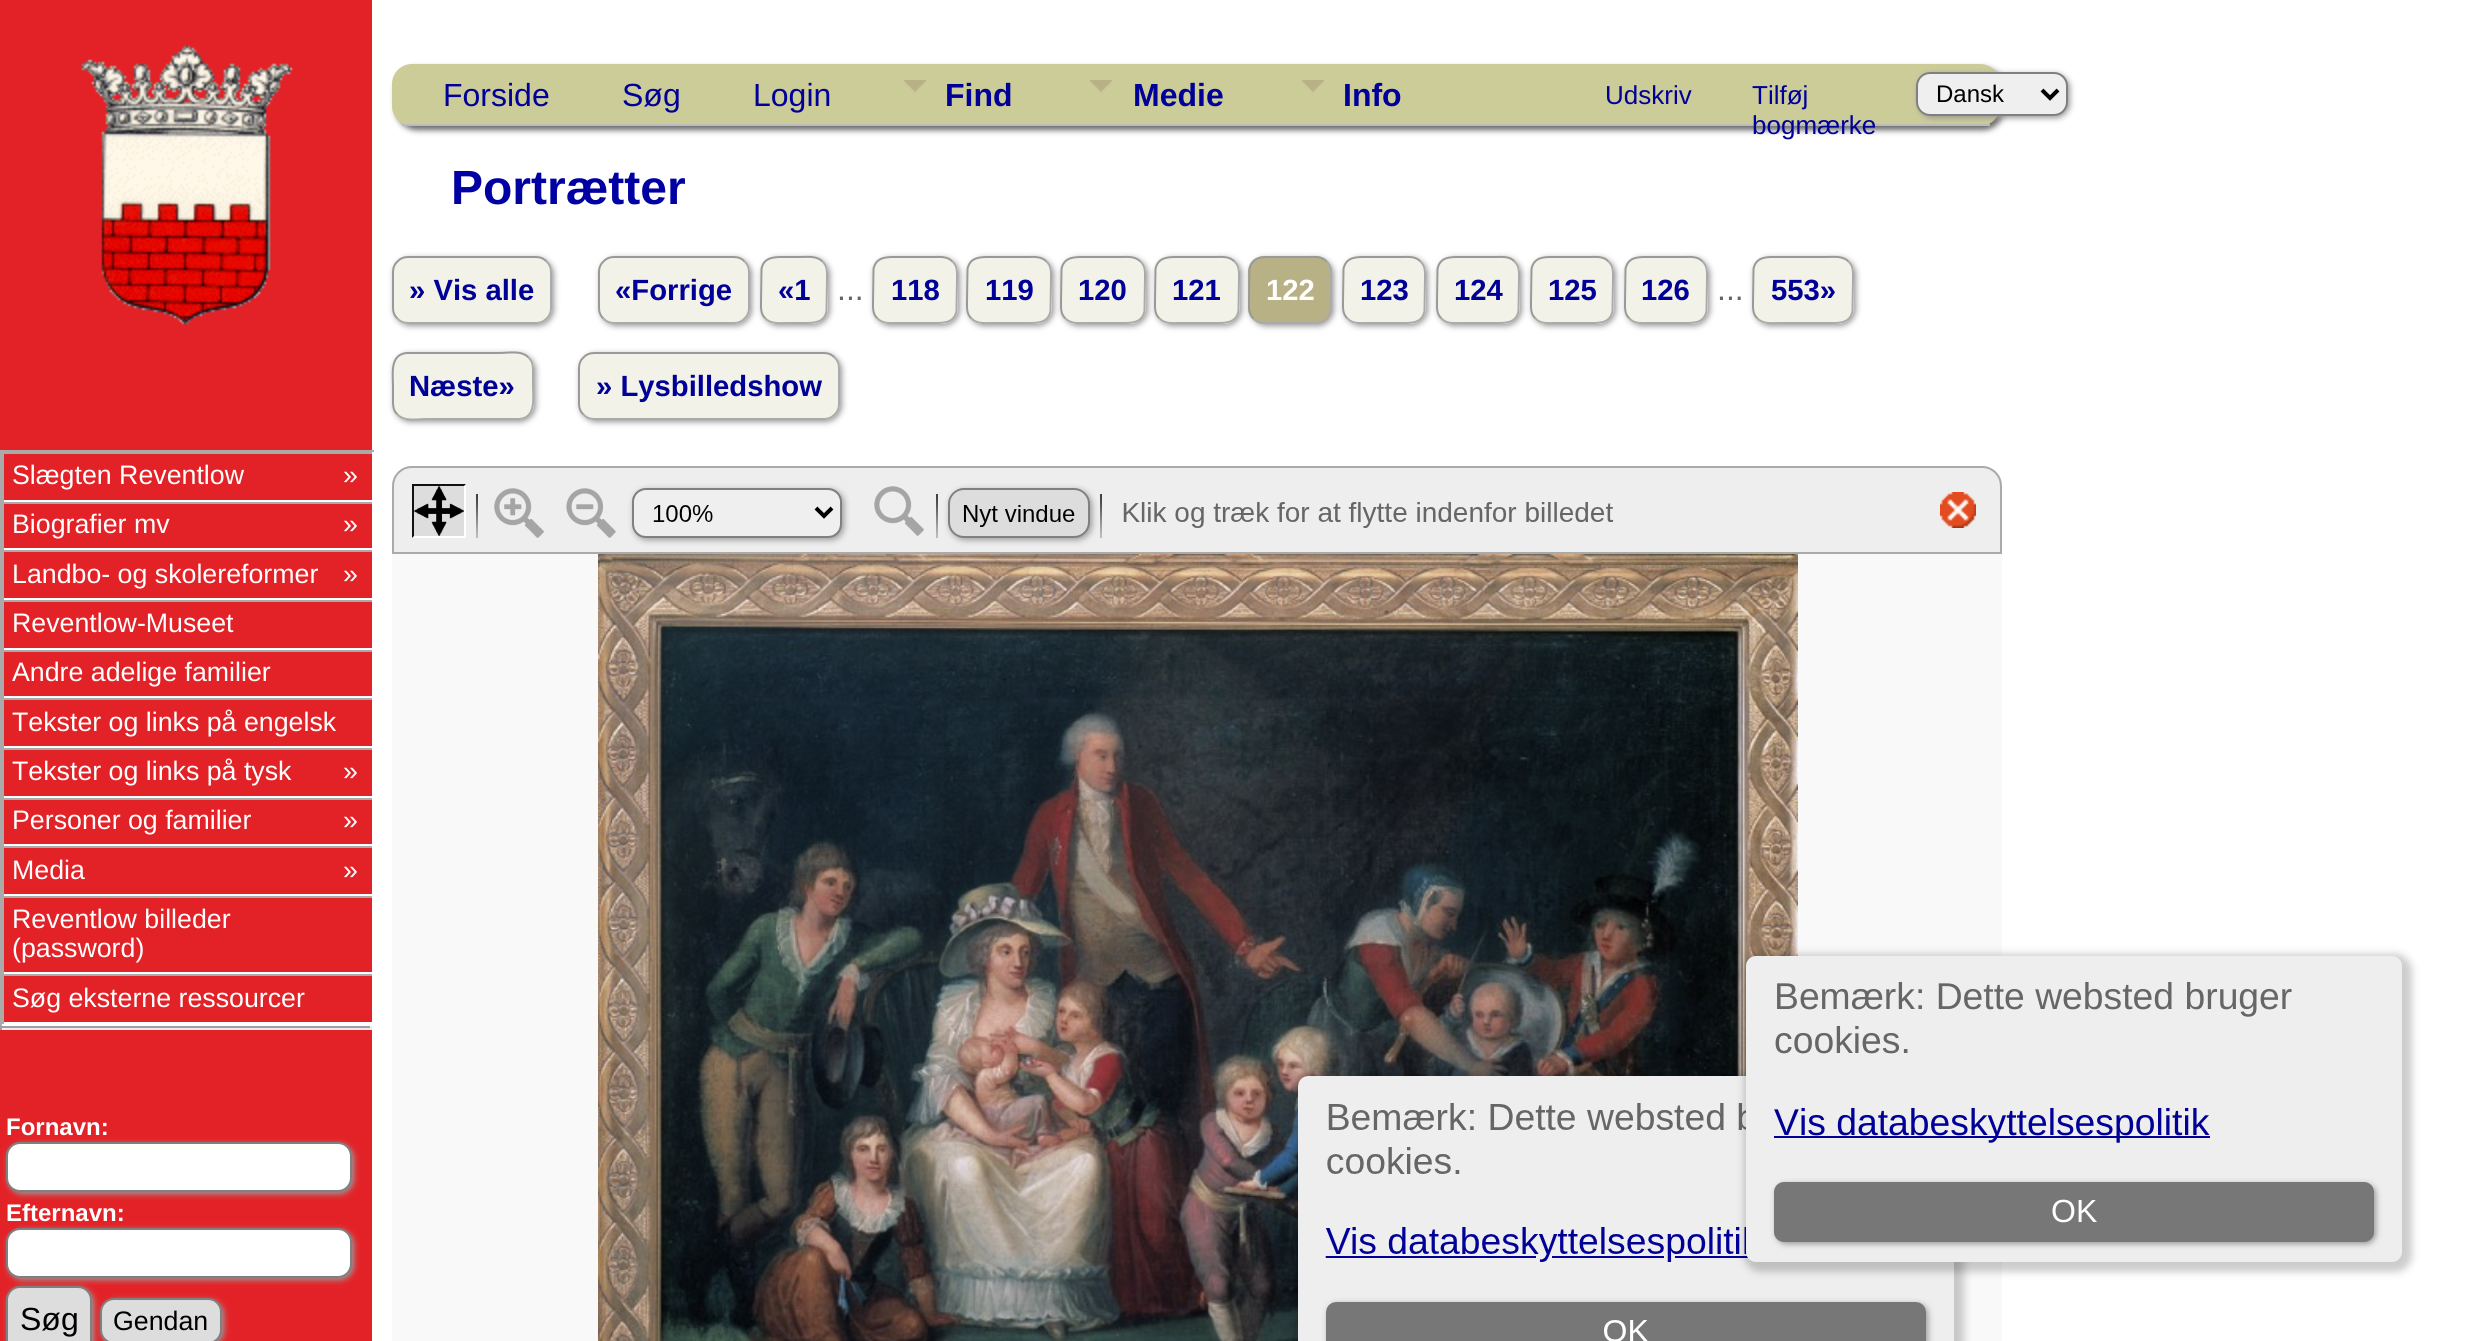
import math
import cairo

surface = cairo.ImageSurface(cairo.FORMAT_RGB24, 2476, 1341)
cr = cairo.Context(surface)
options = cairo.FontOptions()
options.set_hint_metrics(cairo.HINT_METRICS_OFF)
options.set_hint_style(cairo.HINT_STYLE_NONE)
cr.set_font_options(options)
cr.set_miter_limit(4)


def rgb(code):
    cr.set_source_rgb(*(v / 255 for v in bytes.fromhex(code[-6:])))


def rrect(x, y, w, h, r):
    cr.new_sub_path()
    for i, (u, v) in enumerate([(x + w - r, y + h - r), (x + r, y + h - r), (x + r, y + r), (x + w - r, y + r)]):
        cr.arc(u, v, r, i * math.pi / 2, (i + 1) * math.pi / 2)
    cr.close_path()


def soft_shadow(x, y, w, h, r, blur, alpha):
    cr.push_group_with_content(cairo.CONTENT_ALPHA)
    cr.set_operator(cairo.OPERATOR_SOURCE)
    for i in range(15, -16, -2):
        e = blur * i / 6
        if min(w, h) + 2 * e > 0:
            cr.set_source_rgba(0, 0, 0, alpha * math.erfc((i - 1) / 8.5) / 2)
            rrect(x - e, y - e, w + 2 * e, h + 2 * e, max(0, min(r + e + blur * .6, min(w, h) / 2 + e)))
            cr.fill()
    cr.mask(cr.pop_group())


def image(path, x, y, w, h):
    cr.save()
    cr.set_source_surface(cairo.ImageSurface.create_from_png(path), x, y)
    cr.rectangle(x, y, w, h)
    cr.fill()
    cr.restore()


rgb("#ffffff")
cr.paint()
rgb("#e32227")
cr.rectangle(0, 0, 372, 1341)
cr.fill()
image("img/1.png", 81, 45, 212, 280)
for x, y, w, h, color in [
    (0, 450, 376, 2, "#aaaaaa"),
    (374, 450, 2, 2, "#ffffff"),
    (0, 1024, 376, 2, "#ffffff"),
    (0, 450, 2, 576, "#aaaaaa"),
    (2, 452, 372, 2, "#aaaaaa"),
    (372, 452, 2, 2, "#ffffff"),
    (2, 500, 372, 2, "#ffffff"),
    (2, 452, 2, 50, "#aaaaaa"),
    (2, 502, 372, 2, "#aaaaaa"),
    (372, 502, 2, 2, "#ffffff"),
    (2, 548, 372, 2, "#ffffff"),
    (2, 502, 2, 48, "#aaaaaa"),
    (2, 550, 372, 2, "#aaaaaa"),
    (372, 550, 2, 2, "#ffffff"),
    (2, 598, 372, 2, "#ffffff"),
    (2, 550, 2, 50, "#aaaaaa"),
    (2, 600, 372, 2, "#aaaaaa"),
    (372, 600, 2, 2, "#ffffff"),
    (2, 648, 372, 2, "#ffffff"),
    (2, 600, 2, 50, "#aaaaaa"),
    (2, 650, 372, 2, "#aaaaaa"),
    (372, 650, 2, 2, "#ffffff"),
    (2, 696, 372, 2, "#ffffff"),
    (2, 650, 2, 48, "#aaaaaa"),
    (2, 698, 372, 2, "#aaaaaa"),
    (372, 698, 2, 2, "#ffffff"),
    (2, 746, 372, 2, "#ffffff"),
    (2, 698, 2, 50, "#aaaaaa"),
    (2, 748, 372, 2, "#aaaaaa"),
    (372, 748, 2, 2, "#ffffff"),
    (2, 796, 372, 2, "#ffffff"),
    (2, 748, 2, 50, "#aaaaaa"),
    (2, 798, 372, 2, "#aaaaaa"),
    (372, 798, 2, 2, "#ffffff"),
    (2, 844, 372, 2, "#ffffff"),
    (2, 798, 2, 48, "#aaaaaa"),
    (2, 846, 372, 2, "#aaaaaa"),
    (372, 846, 2, 2, "#ffffff"),
    (2, 894, 372, 2, "#ffffff"),
    (2, 846, 2, 50, "#aaaaaa"),
    (2, 896, 372, 2, "#aaaaaa"),
    (372, 896, 2, 2, "#ffffff"),
    (2, 972, 372, 2, "#ffffff"),
    (2, 896, 2, 78, "#aaaaaa"),
    (2, 974, 372, 2, "#aaaaaa"),
    (372, 974, 2, 2, "#ffffff"),
    (2, 1022, 372, 2, "#ffffff"),
    (2, 974, 2, 50, "#aaaaaa"),
    (0, 1026, 372, 2, "#9f9f9f"),
    (370, 1026, 2, 4, "#eeeeee"),
    (0, 1028, 372, 2, "#eeeeee"),
    (0, 1026, 2, 4, "#9f9f9f"),
]:
    rgb(color)
    cr.rectangle(x, y, w, h)
    cr.fill()
rgb("#999999")
soft_shadow(8, 1144, 346, 50, 14, 3, 1)
rgb("#ffffff")
rrect(7, 1143, 344, 48, 13)
cr.fill_preserve()
rgb("#808080")
cr.stroke()
rgb("#999999")
soft_shadow(8, 1230, 346, 50, 14, 3, 1)
rgb("#ffffff")
rrect(7, 1229, 344, 48, 13)
cr.fill_preserve()
rgb("#808080")
cr.stroke()
rgb("#999999")
soft_shadow(8, 1288, 86, 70, 14, 3, 1)
rgb("#dddddd")
rrect(7, 1287, 84, 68, 13)
cr.fill_preserve()
rgb("#808080")
cr.stroke()
rgb("#999999")
soft_shadow(102, 1300, 122, 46, 14, 3, 1)
rgb("#dddddd")
rrect(101, 1299, 120, 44, 13)
cr.fill_preserve()
rgb("#808080")
cr.stroke()
rgb("#666666")
soft_shadow(396, 68, 1608, 62, 20, 3, 1)
rgb("#cccc99")
rrect(392, 64, 1608, 62, 20)
cr.fill()
rgb("#bbbbbb")
cr.rectangle(402, 124, 1588, 2)
cr.fill()
image("img/2.png", 903, 80, 24, 13)
image("img/2.png", 1089, 80, 24, 13)
image("img/2.png", 1301, 80, 24, 13)
rgb("#999999")
soft_shadow(1918, 74, 152, 44, 14, 3, 1)
rgb("#efefef")
rrect(1917, 73, 150, 42, 13)
cr.fill_preserve()
rgb("#808080")
cr.stroke()
cr.new_path()
cr.move_to(2042, 90)
cr.line_to(2050, 98)
cr.line_to(2058, 90)
rgb("#000000")
cr.set_line_width(4)
cr.stroke()
rgb("#999999")
soft_shadow(394, 258, 160, 68, 16, 3, 1)
rgb("#f2f2e9")
rrect(392, 256, 160, 68, 16)
cr.fill()
cr.new_path()
cr.move_to(546.5, 261.5)
cr.curve_to(549.5, 264, 551, 268, 551, 272)
cr.line_to(551, 308)
cr.curve_to(551, 312, 549.5, 316, 546.5, 318.5)
cr.curve_to(544, 321.5, 540, 323, 536, 323)
cr.line_to(408, 323)
cr.curve_to(404, 323, 400, 321.5, 397.5, 318.5)
rgb("#aaaaaa")
cr.set_line_width(2)
cr.stroke()
cr.new_path()
cr.move_to(397.5, 318.5)
cr.curve_to(394.5, 316, 393, 312, 393, 308)
cr.line_to(393, 272)
cr.curve_to(393, 268, 394.5, 264, 397.5, 261.5)
cr.curve_to(400, 258.5, 404, 257, 408, 257)
cr.line_to(536, 257)
cr.curve_to(540, 257, 544, 258.5, 546.5, 261.5)
rgb("#999999")
cr.stroke()
rgb("#999999")
soft_shadow(600, 258, 152, 68, 16, 3, 1)
rgb("#f2f2e9")
rrect(598, 256, 152, 68, 16)
cr.fill()
cr.new_path()
cr.move_to(744.5, 261.5)
cr.curve_to(747.5, 264, 749, 268, 749, 272)
cr.line_to(749, 308)
cr.curve_to(749, 312, 747.5, 316, 744.5, 318.5)
cr.curve_to(742, 321.5, 738, 323, 734, 323)
cr.line_to(614, 323)
cr.curve_to(610, 323, 606, 321.5, 603.5, 318.5)
rgb("#aaaaaa")
cr.stroke()
cr.new_path()
cr.move_to(603.5, 318.5)
cr.curve_to(600.5, 316, 599, 312, 599, 308)
cr.line_to(599, 272)
cr.curve_to(599, 268, 600.5, 264, 603.5, 261.5)
cr.curve_to(606, 258.5, 610, 257, 614, 257)
cr.line_to(734, 257)
cr.curve_to(738, 257, 742, 258.5, 744.5, 261.5)
rgb("#999999")
cr.stroke()
rgb("#999999")
soft_shadow(762, 258, 68, 68, 16, 3, 1)
rgb("#f2f2e9")
rrect(760, 256, 68, 68, 16)
cr.fill()
cr.new_path()
cr.move_to(822.5, 261.5)
cr.curve_to(827.5, 266, 827, 272, 827, 278)
cr.line_to(826.5, 311)
cr.curve_to(824.5, 322, 815.5, 323, 806, 323)
cr.line_to(788, 323)
cr.curve_to(780.5, 323, 771.5, 324.5, 765.5, 318.5)
rgb("#aaaaaa")
cr.stroke()
cr.new_path()
cr.move_to(765.5, 318.5)
cr.curve_to(760.5, 314, 761, 308, 761, 302)
cr.line_to(761.5, 269)
cr.curve_to(763.5, 258, 772.5, 257, 782, 257)
cr.line_to(800, 257)
cr.curve_to(807.5, 257, 816.5, 255.5, 822.5, 261.5)
rgb("#999999")
cr.stroke()
rgb("#999999")
soft_shadow(874, 258, 86, 68, 16, 3, 1)
rgb("#f2f2e9")
rrect(872, 256, 86, 68, 16)
cr.fill()
cr.new_path()
cr.move_to(952.5, 261.5)
cr.curve_to(957.5, 266, 957, 272, 957, 278)
cr.line_to(956.5, 311)
cr.curve_to(954, 323.5, 943, 323, 933, 323)
cr.line_to(897, 323)
cr.curve_to(890, 323, 883, 324, 877.5, 318.5)
rgb("#aaaaaa")
cr.stroke()
cr.new_path()
cr.move_to(877.5, 318.5)
cr.curve_to(872.5, 314, 873, 308, 873, 302)
cr.line_to(873.5, 269)
cr.curve_to(876, 256.5, 887, 257, 897, 257)
cr.line_to(933, 257)
cr.curve_to(940, 257, 947, 256, 952.5, 261.5)
rgb("#999999")
cr.stroke()
rgb("#999999")
soft_shadow(968, 258, 86, 68, 16, 3, 1)
rgb("#f2f2e9")
rrect(966, 256, 86, 68, 16)
cr.fill()
cr.new_path()
cr.move_to(1046.5, 261.5)
cr.curve_to(1051.5, 266, 1051, 272, 1051, 278)
cr.line_to(1050.5, 311)
cr.curve_to(1048, 323.5, 1037, 323, 1027, 323)
cr.line_to(991, 323)
cr.curve_to(984, 323, 977, 324, 971.5, 318.5)
rgb("#aaaaaa")
cr.stroke()
cr.new_path()
cr.move_to(971.5, 318.5)
cr.curve_to(966.5, 314, 967, 308, 967, 302)
cr.line_to(967.5, 269)
cr.curve_to(970, 256.5, 981, 257, 991, 257)
cr.line_to(1027, 257)
cr.curve_to(1034, 257, 1041, 256, 1046.5, 261.5)
rgb("#999999")
cr.stroke()
rgb("#999999")
soft_shadow(1062, 258, 86, 68, 16, 3, 1)
rgb("#f2f2e9")
rrect(1060, 256, 86, 68, 16)
cr.fill()
cr.new_path()
cr.move_to(1140.5, 261.5)
cr.curve_to(1145.5, 266, 1145, 272, 1145, 278)
cr.line_to(1144.5, 311)
cr.curve_to(1142, 323.5, 1131, 323, 1121, 323)
cr.line_to(1085, 323)
cr.curve_to(1078, 323, 1071, 324, 1065.5, 318.5)
rgb("#aaaaaa")
cr.stroke()
cr.new_path()
cr.move_to(1065.5, 318.5)
cr.curve_to(1060.5, 314, 1061, 308, 1061, 302)
cr.line_to(1061.5, 269)
cr.curve_to(1064, 256.5, 1075, 257, 1085, 257)
cr.line_to(1121, 257)
cr.curve_to(1128, 257, 1135, 256, 1140.5, 261.5)
rgb("#999999")
cr.stroke()
rgb("#999999")
soft_shadow(1156, 258, 86, 68, 16, 3, 1)
rgb("#f2f2e9")
rrect(1154, 256, 86, 68, 16)
cr.fill()
cr.new_path()
cr.move_to(1234.5, 261.5)
cr.curve_to(1239.5, 266, 1239, 272, 1239, 278)
cr.line_to(1238.5, 311)
cr.curve_to(1236, 323.5, 1225, 323, 1215, 323)
cr.line_to(1179, 323)
cr.curve_to(1172, 323, 1165, 324, 1159.5, 318.5)
rgb("#aaaaaa")
cr.stroke()
cr.new_path()
cr.move_to(1159.5, 318.5)
cr.curve_to(1154.5, 314, 1155, 308, 1155, 302)
cr.line_to(1155.5, 269)
cr.curve_to(1158, 256.5, 1169, 257, 1179, 257)
cr.line_to(1215, 257)
cr.curve_to(1222, 257, 1229, 256, 1234.5, 261.5)
rgb("#999999")
cr.stroke()
rgb("#999999")
soft_shadow(1250, 258, 84, 68, 16, 3, 1)
rgb("#b9b186")
rrect(1248, 256, 84, 68, 16)
cr.fill()
cr.new_path()
cr.move_to(1326.5, 261.5)
cr.curve_to(1331.5, 266, 1331, 272, 1331, 278)
cr.line_to(1330.5, 311)
cr.curve_to(1328, 323.5, 1317.5, 323, 1307.5, 323)
cr.line_to(1272.5, 323)
cr.curve_to(1265.5, 323, 1258.5, 324, 1253.5, 318.5)
rgb("#aaaaaa")
cr.stroke()
cr.new_path()
cr.move_to(1253.5, 318.5)
cr.curve_to(1248.5, 314, 1249, 308, 1249, 302)
cr.line_to(1249.5, 269)
cr.curve_to(1252, 256.5, 1262.5, 257, 1272.5, 257)
cr.line_to(1307.5, 257)
cr.curve_to(1314.5, 257, 1321.5, 256, 1326.5, 261.5)
rgb("#999999")
cr.stroke()
rgb("#999999")
soft_shadow(1344, 258, 84, 68, 16, 3, 1)
rgb("#f2f2e9")
rrect(1342, 256, 84, 68, 16)
cr.fill()
cr.new_path()
cr.move_to(1420.5, 261.5)
cr.curve_to(1425.5, 266, 1425, 272, 1425, 278)
cr.line_to(1424.5, 311)
cr.curve_to(1422, 323.5, 1411.5, 323, 1401.5, 323)
cr.line_to(1366.5, 323)
cr.curve_to(1359.5, 323, 1352.5, 324, 1347.5, 318.5)
rgb("#aaaaaa")
cr.stroke()
cr.new_path()
cr.move_to(1347.5, 318.5)
cr.curve_to(1342.5, 314, 1343, 308, 1343, 302)
cr.line_to(1343.5, 269)
cr.curve_to(1346, 256.5, 1356.5, 257, 1366.5, 257)
cr.line_to(1401.5, 257)
cr.curve_to(1408.5, 257, 1415.5, 256, 1420.5, 261.5)
rgb("#999999")
cr.stroke()
rgb("#999999")
soft_shadow(1438, 258, 84, 68, 16, 3, 1)
rgb("#f2f2e9")
rrect(1436, 256, 84, 68, 16)
cr.fill()
cr.new_path()
cr.move_to(1514.5, 261.5)
cr.curve_to(1519.5, 266, 1519, 272, 1519, 278)
cr.line_to(1518.5, 311)
cr.curve_to(1516, 323.5, 1505.5, 323, 1495.5, 323)
cr.line_to(1460.5, 323)
cr.curve_to(1453.5, 323, 1446.5, 324, 1441.5, 318.5)
rgb("#aaaaaa")
cr.stroke()
cr.new_path()
cr.move_to(1441.5, 318.5)
cr.curve_to(1436.5, 314, 1437, 308, 1437, 302)
cr.line_to(1437.5, 269)
cr.curve_to(1440, 256.5, 1450.5, 257, 1460.5, 257)
cr.line_to(1495.5, 257)
cr.curve_to(1502.5, 257, 1509.5, 256, 1514.5, 261.5)
rgb("#999999")
cr.stroke()
rgb("#999999")
soft_shadow(1532, 258, 84, 68, 16, 3, 1)
rgb("#f2f2e9")
rrect(1530, 256, 84, 68, 16)
cr.fill()
cr.new_path()
cr.move_to(1608.5, 261.5)
cr.curve_to(1613.5, 266, 1613, 272, 1613, 278)
cr.line_to(1612.5, 311)
cr.curve_to(1610, 323.5, 1599.5, 323, 1589.5, 323)
cr.line_to(1554.5, 323)
cr.curve_to(1547.5, 323, 1540.5, 324, 1535.5, 318.5)
rgb("#aaaaaa")
cr.stroke()
cr.new_path()
cr.move_to(1535.5, 318.5)
cr.curve_to(1530.5, 314, 1531, 308, 1531, 302)
cr.line_to(1531.5, 269)
cr.curve_to(1534, 256.5, 1544.5, 257, 1554.5, 257)
cr.line_to(1589.5, 257)
cr.curve_to(1596.5, 257, 1603.5, 256, 1608.5, 261.5)
rgb("#999999")
cr.stroke()
rgb("#999999")
soft_shadow(1626, 258, 84, 68, 16, 3, 1)
rgb("#f2f2e9")
rrect(1624, 256, 84, 68, 16)
cr.fill()
cr.new_path()
cr.move_to(1702.5, 261.5)
cr.curve_to(1707.5, 266, 1707, 272, 1707, 278)
cr.line_to(1706.5, 311)
cr.curve_to(1704, 323.5, 1693.5, 323, 1683.5, 323)
cr.line_to(1648.5, 323)
cr.curve_to(1641.5, 323, 1634.5, 324, 1629.5, 318.5)
rgb("#aaaaaa")
cr.stroke()
cr.new_path()
cr.move_to(1629.5, 318.5)
cr.curve_to(1624.5, 314, 1625, 308, 1625, 302)
cr.line_to(1625.5, 269)
cr.curve_to(1628, 256.5, 1638.5, 257, 1648.5, 257)
cr.line_to(1683.5, 257)
cr.curve_to(1690.5, 257, 1697.5, 256, 1702.5, 261.5)
rgb("#999999")
cr.stroke()
rgb("#999999")
soft_shadow(1754, 258, 102, 68, 16, 3, 1)
rgb("#f2f2e9")
rrect(1752, 256, 102, 68, 16)
cr.fill()
cr.new_path()
cr.move_to(1848.5, 261.5)
cr.curve_to(1853.5, 266, 1853, 272, 1853, 278)
cr.line_to(1852.5, 311)
cr.curve_to(1850, 324.5, 1837, 323, 1826.5, 323)
cr.line_to(1779.5, 323)
cr.curve_to(1772, 323, 1763.5, 324.5, 1757.5, 318.5)
rgb("#aaaaaa")
cr.stroke()
cr.new_path()
cr.move_to(1757.5, 318.5)
cr.curve_to(1752.5, 314, 1753, 308, 1753, 302)
cr.line_to(1753.5, 269)
cr.curve_to(1756, 255.5, 1769, 257, 1779.5, 257)
cr.line_to(1826.5, 257)
cr.curve_to(1834, 257, 1842.5, 255.5, 1848.5, 261.5)
rgb("#999999")
cr.stroke()
rgb("#999999")
soft_shadow(394, 354, 142, 68, 16, 3, 1)
rgb("#f2f2e9")
rrect(392, 352, 142, 68, 16)
cr.fill()
cr.new_path()
cr.move_to(528.5, 357.5)
cr.curve_to(533.5, 362, 533, 368, 533, 374)
cr.line_to(533, 386)
cr.curve_to(533, 397.5, 536.5, 417.5, 519.5, 419)
cr.line_to(426.5, 419)
cr.curve_to(418, 419, 404.5, 422, 397.5, 414.5)
rgb("#aaaaaa")
cr.stroke()
cr.new_path()
cr.move_to(397.5, 414.5)
cr.curve_to(392.5, 410, 393, 404, 393, 398)
cr.line_to(393, 386)
cr.curve_to(393, 374.5, 389.5, 354.5, 406.5, 353)
cr.line_to(499.5, 353)
cr.curve_to(508, 353, 521.5, 350, 528.5, 357.5)
rgb("#999999")
cr.stroke()
rgb("#999999")
soft_shadow(580, 354, 262, 68, 16, 3, 1)
rgb("#f2f2e9")
rrect(578, 352, 262, 68, 16)
cr.fill()
cr.new_path()
cr.move_to(834.5, 357.5)
cr.curve_to(837.5, 360, 839, 364, 839, 368)
cr.line_to(839, 404)
cr.curve_to(839, 408, 837.5, 412, 834.5, 414.5)
cr.curve_to(832, 417.5, 828, 419, 824, 419)
cr.line_to(594, 419)
cr.curve_to(590, 419, 586, 417.5, 583.5, 414.5)
rgb("#aaaaaa")
cr.stroke()
cr.new_path()
cr.move_to(583.5, 414.5)
cr.curve_to(580.5, 412, 579, 408, 579, 404)
cr.line_to(579, 368)
cr.curve_to(579, 364, 580.5, 360, 583.5, 357.5)
cr.curve_to(586, 354.5, 590, 353, 594, 353)
cr.line_to(824, 353)
cr.curve_to(828, 353, 832, 354.5, 834.5, 357.5)
rgb("#999999")
cr.stroke()
image("img/3.png", 392, 466, 1610, 875)
rgb("#000000")
soft_shadow(1744, 954, 668, 318, 16, 4, 0.2)
rgb("#eeeeee")
rrect(1746, 956, 656, 306, 10)
cr.fill()
rgb("#000099")
cr.rectangle(1774, 1136, 436, 2)
cr.fill()
rgb("#999999")
soft_shadow(1776, 1184, 600, 60, 10, 3, 1)
rgb("#777777")
rrect(1774, 1182, 600, 60, 10)
cr.fill()
cr.select_font_face("Liberation Sans")
cr.set_font_size(26.75)
rgb("#ffffff")
for x, y, s in [
    (12, 484, "Slægten Reventlow"),
    (343, 484, "»"),
    (12, 533, "Biografier mv"),
    (343, 533, "»"),
    (12, 583, "Landbo- og skolereformer"),
    (343, 583, "»"),
    (12, 632, "Reventlow-Museet"),
    (12, 681, "Andre adelige familier"),
    (12, 731, "Tekster og links på engelsk"),
    (12, 780, "Tekster og links på tysk"),
    (343, 780, "»"),
    (12, 829, "Personer og familier"),
    (343, 829, "»"),
    (12, 879, "Media"),
    (343, 879, "»"),
    (12, 928, "Reventlow billeder"),
    (12, 957, "(password)"),
    (12, 1007, "Søg eksterne ressourcer"),
]:
    cr.move_to(x, y)
    cr.show_text(s)
cr.select_font_face("Liberation Sans", cairo.FONT_SLANT_NORMAL, cairo.FONT_WEIGHT_BOLD)
cr.set_font_size(24)
cr.move_to(6, 1135)
cr.show_text("Fornavn:")
cr.move_to(6, 1221)
cr.show_text("Efternavn:")
cr.select_font_face("Liberation Sans")
cr.set_font_size(32)
rgb("#000000")
cr.move_to(20, 1330)
cr.show_text("Søg")
cr.set_font_size(26.75)
cr.move_to(113, 1330)
cr.show_text("Gendan")
cr.set_font_size(32)
rgb("#000099")
for x, y, s in [
    (443, 106, "Forside"),
    (622, 106, "Søg"),
    (753, 106, "Login"),
]:
    cr.move_to(x, y)
    cr.show_text(s)
cr.select_font_face("Liberation Sans", cairo.FONT_SLANT_NORMAL, cairo.FONT_WEIGHT_BOLD)
for x, y, s in [
    (945, 106, "Find"),
    (1133, 106, "Medie"),
    (1343, 106, "Info"),
]:
    cr.move_to(x, y)
    cr.show_text(s)
cr.select_font_face("Liberation Sans")
cr.set_font_size(26)
for x, y, s in [
    (1605, 104, "Udskriv"),
    (1752, 104, "Tilføj"),
    (1752, 134, "bogmærke"),
]:
    cr.move_to(x, y)
    cr.show_text(s)
cr.set_font_size(24)
rgb("#000000")
cr.move_to(1936, 102)
cr.show_text("Dansk")
cr.select_font_face("Liberation Sans", cairo.FONT_SLANT_NORMAL, cairo.FONT_WEIGHT_BOLD)
cr.set_font_size(48)
rgb("#0000a3")
cr.move_to(451, 204)
cr.show_text("Portrætter")
cr.set_font_size(29.25)
rgb("#000099")
for x, y, s in [
    (409, 300, "» Vis alle"),
    (615, 300, "«Forrige"),
    (778, 300, "«1"),
]:
    cr.move_to(x, y)
    cr.show_text(s)
cr.select_font_face("Liberation Sans")
cr.set_font_size(32)
rgb("#666666")
cr.move_to(837, 300)
cr.show_text("...")
cr.select_font_face("Liberation Sans", cairo.FONT_SLANT_NORMAL, cairo.FONT_WEIGHT_BOLD)
cr.set_font_size(29.25)
rgb("#000099")
for x, y, s in [
    (891, 300, "118"),
    (985, 300, "119"),
    (1078, 300, "120"),
    (1172, 300, "121"),
]:
    cr.move_to(x, y)
    cr.show_text(s)
rgb("#ffffff")
cr.move_to(1266, 300)
cr.show_text("122")
rgb("#000099")
for x, y, s in [
    (1360, 300, "123"),
    (1454, 300, "124"),
    (1548, 300, "125"),
    (1641, 300, "126"),
]:
    cr.move_to(x, y)
    cr.show_text(s)
cr.select_font_face("Liberation Sans")
cr.set_font_size(32)
rgb("#666666")
cr.move_to(1717, 300)
cr.show_text("...")
cr.select_font_face("Liberation Sans", cairo.FONT_SLANT_NORMAL, cairo.FONT_WEIGHT_BOLD)
cr.set_font_size(29.25)
rgb("#000099")
for x, y, s in [
    (1771, 300, "553»"),
    (409, 396, "Næste»"),
    (596, 396, "» Lysbilledshow"),
]:
    cr.move_to(x, y)
    cr.show_text(s)
cr.select_font_face("Liberation Sans")
cr.set_font_size(37.3)
rgb("#666666")
cr.move_to(1774, 1009)
cr.show_text("Bemærk: Dette websted bruger")
cr.move_to(1774, 1053)
cr.show_text("cookies.")
rgb("#000099")
cr.move_to(1774, 1135)
cr.show_text("Vis databeskyttelsespolitik")
cr.set_font_size(32)
rgb("#ffffff")
cr.move_to(2051, 1222)
cr.show_text("OK")
surface.write_to_png("page.png")
